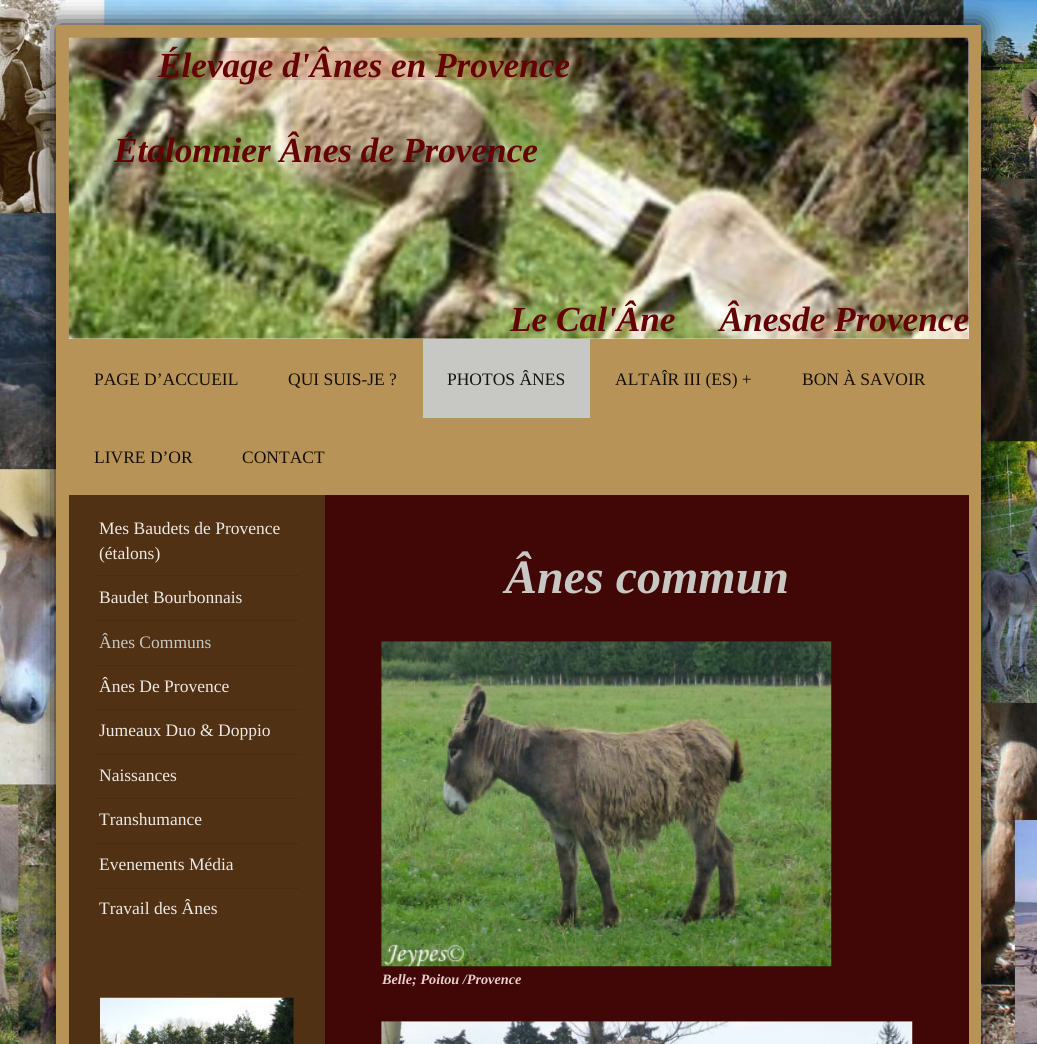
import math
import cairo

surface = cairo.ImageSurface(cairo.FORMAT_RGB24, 1037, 1044)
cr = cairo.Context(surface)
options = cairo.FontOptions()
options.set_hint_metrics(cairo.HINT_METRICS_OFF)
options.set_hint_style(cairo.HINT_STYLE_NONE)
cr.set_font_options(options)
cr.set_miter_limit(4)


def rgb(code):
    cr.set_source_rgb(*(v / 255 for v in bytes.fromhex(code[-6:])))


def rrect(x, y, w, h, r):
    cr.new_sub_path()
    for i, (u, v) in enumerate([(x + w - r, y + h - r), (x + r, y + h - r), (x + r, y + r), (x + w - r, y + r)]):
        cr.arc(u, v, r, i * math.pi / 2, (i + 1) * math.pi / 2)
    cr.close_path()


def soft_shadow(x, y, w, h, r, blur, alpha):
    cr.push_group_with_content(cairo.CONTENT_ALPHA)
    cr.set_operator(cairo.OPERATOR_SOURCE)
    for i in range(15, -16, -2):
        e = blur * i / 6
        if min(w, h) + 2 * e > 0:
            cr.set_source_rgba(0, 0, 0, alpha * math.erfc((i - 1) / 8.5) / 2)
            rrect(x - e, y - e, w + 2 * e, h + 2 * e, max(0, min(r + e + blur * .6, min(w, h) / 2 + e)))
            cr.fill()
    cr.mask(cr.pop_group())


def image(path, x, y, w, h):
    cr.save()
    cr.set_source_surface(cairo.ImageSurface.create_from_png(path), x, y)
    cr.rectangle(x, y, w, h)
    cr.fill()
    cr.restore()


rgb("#ffffff")
cr.paint()
image("img/1.png", 0, 0, 1037, 1044)
rgb("#000000")
soft_shadow(56, 25, 925, 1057, 0, 12.5, 1)
rgb("#b89357")
cr.rectangle(56, 25, 925, 1019)
cr.fill()
rgb("#eeeeee")
cr.rectangle(69, 38, 900, 301)
cr.fill()
image("img/2.png", 68, 37, 901, 302)
cr.set_source_rgba(0.624, 0.016, 0.031, 0.13)
cr.rectangle(85, 51, 453, 29)
cr.fill()
rgb("#c7c8c3")
cr.rectangle(423, 339, 167, 79)
cr.fill()
rgb("#410606")
cr.rectangle(325, 495, 644, 549)
cr.fill()
rgb("#513113")
cr.rectangle(69, 495, 256, 549)
cr.fill()
rgb("#492c11")
cr.rectangle(94, 575, 206, 1)
cr.rectangle(94, 620, 206, 1)
cr.rectangle(94, 665, 206, 1)
cr.rectangle(94, 709, 206, 1)
cr.rectangle(94, 754, 206, 1)
cr.rectangle(94, 798, 206, 1)
cr.rectangle(94, 843, 206, 1)
cr.rectangle(94, 888, 206, 1)
cr.fill()
image("img/3.png", 100, 997, 194, 47)
image("img/4.png", 381, 641, 451, 326)
image("img/5.png", 381, 1021, 532, 23)
cr.select_font_face("Liberation Serif", cairo.FONT_SLANT_ITALIC, cairo.FONT_WEIGHT_BOLD)
cr.set_font_size(35.25)
rgb("#650205")
for x, y, s in [
    (158, 77, "Élevage d'Ânes en Provence"),
    (114, 162, "Étalonnier Ânes de Provence"),
    (510, 331, "Le Cal'Âne     Ânesde Provence"),
]:
    cr.move_to(x, y)
    cr.show_text(s)
cr.select_font_face("Liberation Serif")
cr.set_font_size(17.5)
rgb("#120f09")
cr.move_to(94, 385)
cr.show_text("PAGE D’ACCUEIL")
cr.move_to(288, 385)
cr.show_text("QUI SUIS-JE ?")
rgb("#141414")
cr.move_to(447, 385)
cr.show_text("PHOTOS ÂNES")
rgb("#120f09")
for x, y, s in [
    (615, 385, "ALTAÎR III (ES) +"),
    (802, 385, "BON À SAVOIR"),
    (94, 463, "LIVRE D’OR"),
    (242, 463, "CONTACT"),
]:
    cr.move_to(x, y)
    cr.show_text(s)
rgb("#ede9e6")
for x, y, s in [
    (99, 534, "Mes Baudets de Provence"),
    (99, 559, "(étalons)"),
    (99, 603, "Baudet Bourbonnais"),
]:
    cr.move_to(x, y)
    cr.show_text(s)
rgb("#c7c8c3")
cr.move_to(99, 648)
cr.show_text("Ânes Communs")
rgb("#ede9e6")
for x, y, s in [
    (99, 692, "Ânes De Provence"),
    (99, 736, "Jumeaux Duo & Doppio"),
    (99, 781, "Naissances"),
    (99, 825, "Transhumance"),
    (99, 870, "Evenements Média"),
    (99, 914, "Travail des Ânes"),
]:
    cr.move_to(x, y)
    cr.show_text(s)
cr.select_font_face("Liberation Serif", cairo.FONT_SLANT_ITALIC, cairo.FONT_WEIGHT_BOLD)
cr.set_font_size(48)
rgb("#c7c8c3")
cr.move_to(505, 593)
cr.show_text("Ânes commun")
cr.set_font_size(14.25)
rgb("#eacdcd")
cr.move_to(382, 984)
cr.show_text("Belle; Poitou /Provence")
surface.write_to_png("page.png")
